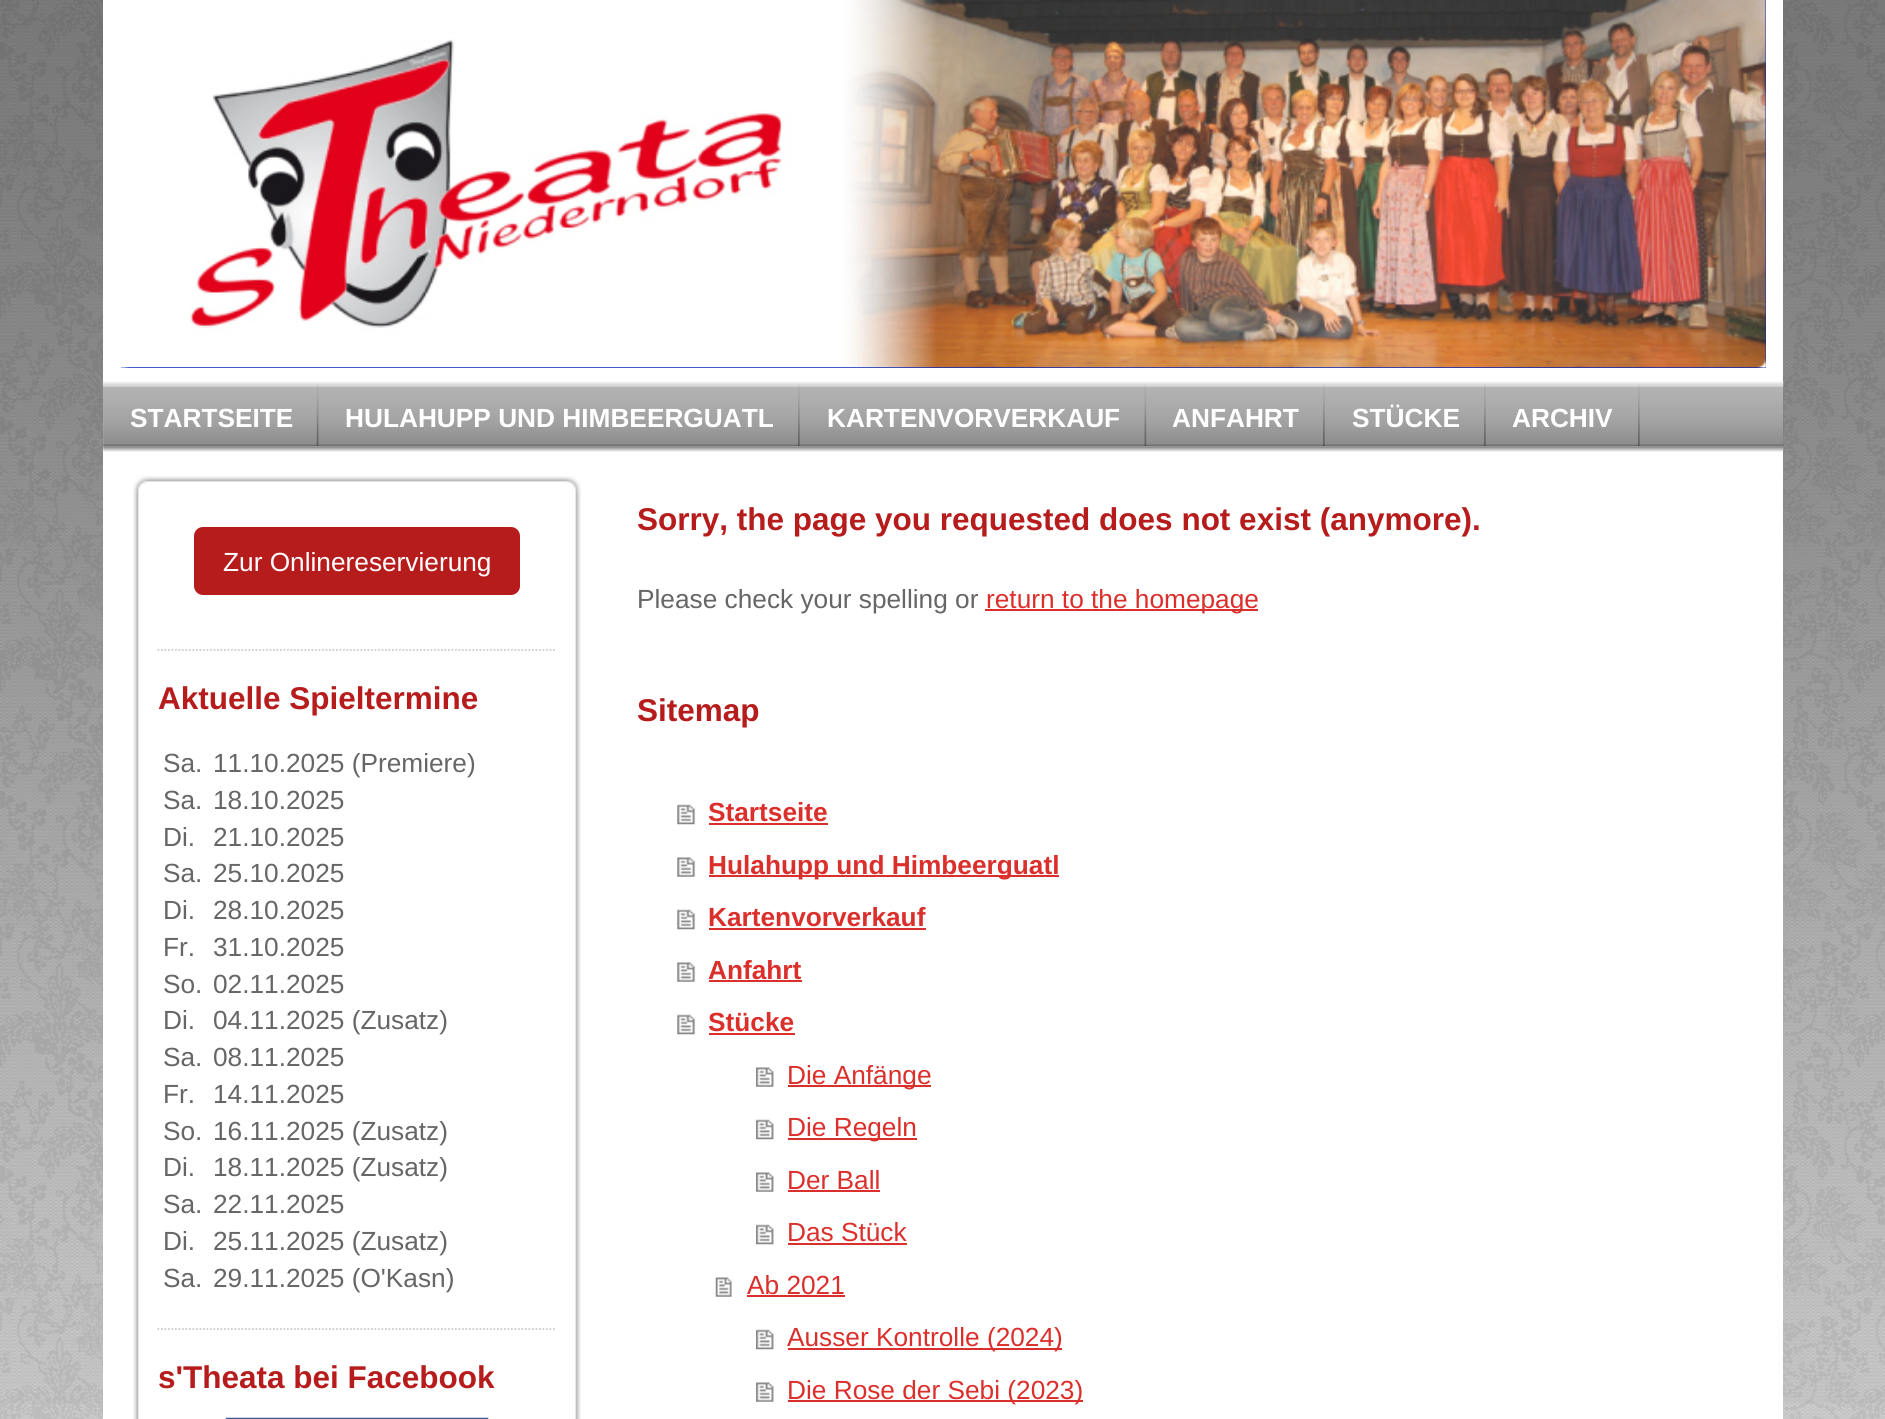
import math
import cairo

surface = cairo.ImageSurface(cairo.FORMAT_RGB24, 1885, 1419)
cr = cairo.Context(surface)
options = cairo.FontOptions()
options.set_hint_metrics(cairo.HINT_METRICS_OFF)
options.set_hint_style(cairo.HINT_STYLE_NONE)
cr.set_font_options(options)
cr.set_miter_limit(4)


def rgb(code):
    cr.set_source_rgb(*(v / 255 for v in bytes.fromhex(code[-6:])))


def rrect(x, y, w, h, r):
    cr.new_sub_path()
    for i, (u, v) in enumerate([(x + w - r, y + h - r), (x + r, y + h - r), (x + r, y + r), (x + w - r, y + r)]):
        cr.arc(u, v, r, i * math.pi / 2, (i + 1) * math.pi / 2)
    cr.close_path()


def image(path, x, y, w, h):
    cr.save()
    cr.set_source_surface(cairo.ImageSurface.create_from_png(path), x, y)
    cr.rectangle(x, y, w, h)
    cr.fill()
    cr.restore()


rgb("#ffffff")
cr.paint()
image("img/1.png", 0, 0, 1885, 1419)
image("img/2.png", 0, 0, 1885, 1403)
rgb("#ffffff")
cr.rectangle(103, 0, 1680, 1419)
cr.fill()
rgb("#0325bc")
cr.rectangle(121, 0, 1645, 368)
cr.fill()
image("img/3.png", 121, 0, 1645, 368)
image("img/4.png", 121, 367, 9, 1)
image("img/5.png", 1757, 359, 9, 9)
image("img/6.png", 103, 381, 1681, 4)
rgb("#b3b3b3")
cr.rectangle(103, 385, 1680, 61)
cr.fill()
image("img/11.png", 103, 446, 1681, 6)
image("img/7.png", 103, 385, 1681, 62)
image("img/8.png", 316, 385, 3, 61)
image("img/9.png", 798, 385, 2, 61)
image("img/10.png", 1144, 385, 3, 61)
image("img/9.png", 1323, 385, 2, 61)
image("img/9.png", 1484, 385, 2, 61)
image("img/9.png", 1638, 385, 2, 61)
image("img/12.png", 133, 476, 448, 16)
image("img/13.png", 133, 491, 448, 928)
rgb("#b71c1c")
rrect(195, 528, 324, 66, 8)
cr.fill_preserve()
cr.stroke()
cr.new_path()
cr.move_to(157.5, 650)
cr.line_to(556.5, 650)
rgb("#cccccc")
cr.set_line_width(1.8)
cr.set_dash([1.75, 1.75])
cr.stroke()
cr.new_path()
cr.move_to(157.5, 1329)
cr.line_to(556.5, 1329)
cr.stroke()
image("img/14.png", 225, 1417, 264, 2)
rgb("#db2f2c")
cr.rectangle(985, 609, 273, 2)
cr.fill()
image("img/15.png", 677, 804, 19, 21)
cr.rectangle(709, 823, 119, 2)
cr.fill()
image("img/16.png", 677, 857, 19, 20)
cr.rectangle(709, 875, 350, 2)
cr.fill()
image("img/15.png", 677, 909, 19, 21)
cr.rectangle(709, 928, 217, 2)
cr.fill()
image("img/16.png", 677, 962, 19, 20)
cr.rectangle(709, 980, 93, 2)
cr.fill()
image("img/15.png", 677, 1014, 19, 21)
cr.rectangle(709, 1033, 86, 2)
cr.fill()
image("img/17.png", 756, 1067, 18, 20)
cr.rectangle(788, 1085, 143, 2)
cr.fill()
image("img/18.png", 756, 1119, 18, 21)
cr.rectangle(788, 1138, 129, 2)
cr.fill()
image("img/17.png", 756, 1172, 18, 20)
cr.rectangle(788, 1190, 92, 2)
cr.fill()
image("img/18.png", 756, 1224, 18, 21)
cr.rectangle(788, 1243, 119, 2)
cr.fill()
image("img/19.png", 715, 1277, 17, 20)
cr.rectangle(747, 1295, 98, 2)
cr.fill()
image("img/18.png", 756, 1329, 18, 21)
cr.rectangle(788, 1348, 274, 2)
cr.fill()
image("img/17.png", 756, 1382, 18, 20)
cr.rectangle(788, 1400, 295, 2)
cr.fill()
cr.select_font_face("Liberation Sans", cairo.FONT_SLANT_NORMAL, cairo.FONT_WEIGHT_BOLD)
cr.set_font_size(26.25)
rgb("#ffffff")
for x, y, s in [
    (130, 427, "STARTSEITE"),
    (345, 427, "HULAHUPP UND HIMBEERGUATL"),
    (827, 427, "KARTENVORVERKAUF"),
    (1172, 427, "ANFAHRT"),
    (1352, 427, "STÜCKE"),
    (1512, 427, "ARCHIV"),
]:
    cr.move_to(x, y)
    cr.show_text(s)
cr.select_font_face("Liberation Sans")
cr.move_to(223, 571)
cr.show_text("Zur Onlinereservierung")
cr.select_font_face("Liberation Sans", cairo.FONT_SLANT_NORMAL, cairo.FONT_WEIGHT_BOLD)
cr.set_font_size(31.5)
rgb("#b71c1c")
cr.move_to(158, 709)
cr.show_text("Aktuelle Spieltermine")
cr.select_font_face("Liberation Sans")
cr.set_font_size(26.25)
rgb("#666666")
for x, y, s in [
    (163, 772, "Sa."),
    (163, 809, "Sa."),
    (163, 846, "Di."),
    (163, 882, "Sa."),
    (163, 919, "Di."),
    (163, 956, "Fr."),
    (163, 993, "So."),
    (163, 1029, "Di."),
    (163, 1066, "Sa."),
    (163, 1103, "Fr."),
    (163, 1140, "So."),
    (163, 1176, "Di."),
    (163, 1213, "Sa."),
    (163, 1250, "Di."),
    (163, 1287, "Sa."),
    (213, 772, "11.10.2025 (Premiere)"),
    (213, 809, "18.10.2025"),
    (213, 846, "21.10.2025"),
    (213, 882, "25.10.2025"),
    (213, 919, "28.10.2025"),
    (213, 956, "31.10.2025"),
    (213, 993, "02.11.2025"),
    (213, 1029, "04.11.2025 (Zusatz)"),
    (213, 1066, "08.11.2025"),
    (213, 1103, "14.11.2025"),
    (213, 1140, "16.11.2025 (Zusatz)"),
    (213, 1176, "18.11.2025 (Zusatz)"),
    (213, 1213, "22.11.2025"),
    (213, 1250, "25.11.2025 (Zusatz)"),
    (213, 1287, "29.11.2025 (O'Kasn)"),
]:
    cr.move_to(x, y)
    cr.show_text(s)
cr.select_font_face("Liberation Sans", cairo.FONT_SLANT_NORMAL, cairo.FONT_WEIGHT_BOLD)
cr.set_font_size(31.5)
rgb("#b71c1c")
cr.move_to(158, 1388)
cr.show_text("s'Theata bei Facebook")
cr.move_to(637, 530)
cr.show_text("Sorry, the page you requested does not exist (anymore).")
cr.select_font_face("Liberation Sans")
cr.set_font_size(26.25)
rgb("#666666")
cr.move_to(637, 608)
cr.show_text("Please check your spelling or")
rgb("#db2f2c")
cr.move_to(986, 608)
cr.show_text("return to the homepage")
cr.select_font_face("Liberation Sans", cairo.FONT_SLANT_NORMAL, cairo.FONT_WEIGHT_BOLD)
cr.set_font_size(31.5)
rgb("#b71c1c")
cr.move_to(637, 721)
cr.show_text("Sitemap")
cr.set_font_size(26.25)
rgb("#db2f2c")
for x, y, s in [
    (708, 821, "Startseite"),
    (708, 874, "Hulahupp und Himbeerguatl"),
    (708, 926, "Kartenvorverkauf"),
    (708, 979, "Anfahrt"),
    (708, 1031, "Stücke"),
]:
    cr.move_to(x, y)
    cr.show_text(s)
cr.select_font_face("Liberation Sans")
for x, y, s in [
    (787, 1084, "Die Anfänge"),
    (787, 1136, "Die Regeln"),
    (787, 1189, "Der Ball"),
    (787, 1241, "Das Stück"),
    (747, 1294, "Ab 2021"),
    (787, 1346, "Ausser Kontrolle (2024)"),
    (787, 1399, "Die Rose der Sebi (2023)"),
]:
    cr.move_to(x, y)
    cr.show_text(s)
surface.write_to_png("page.png")
